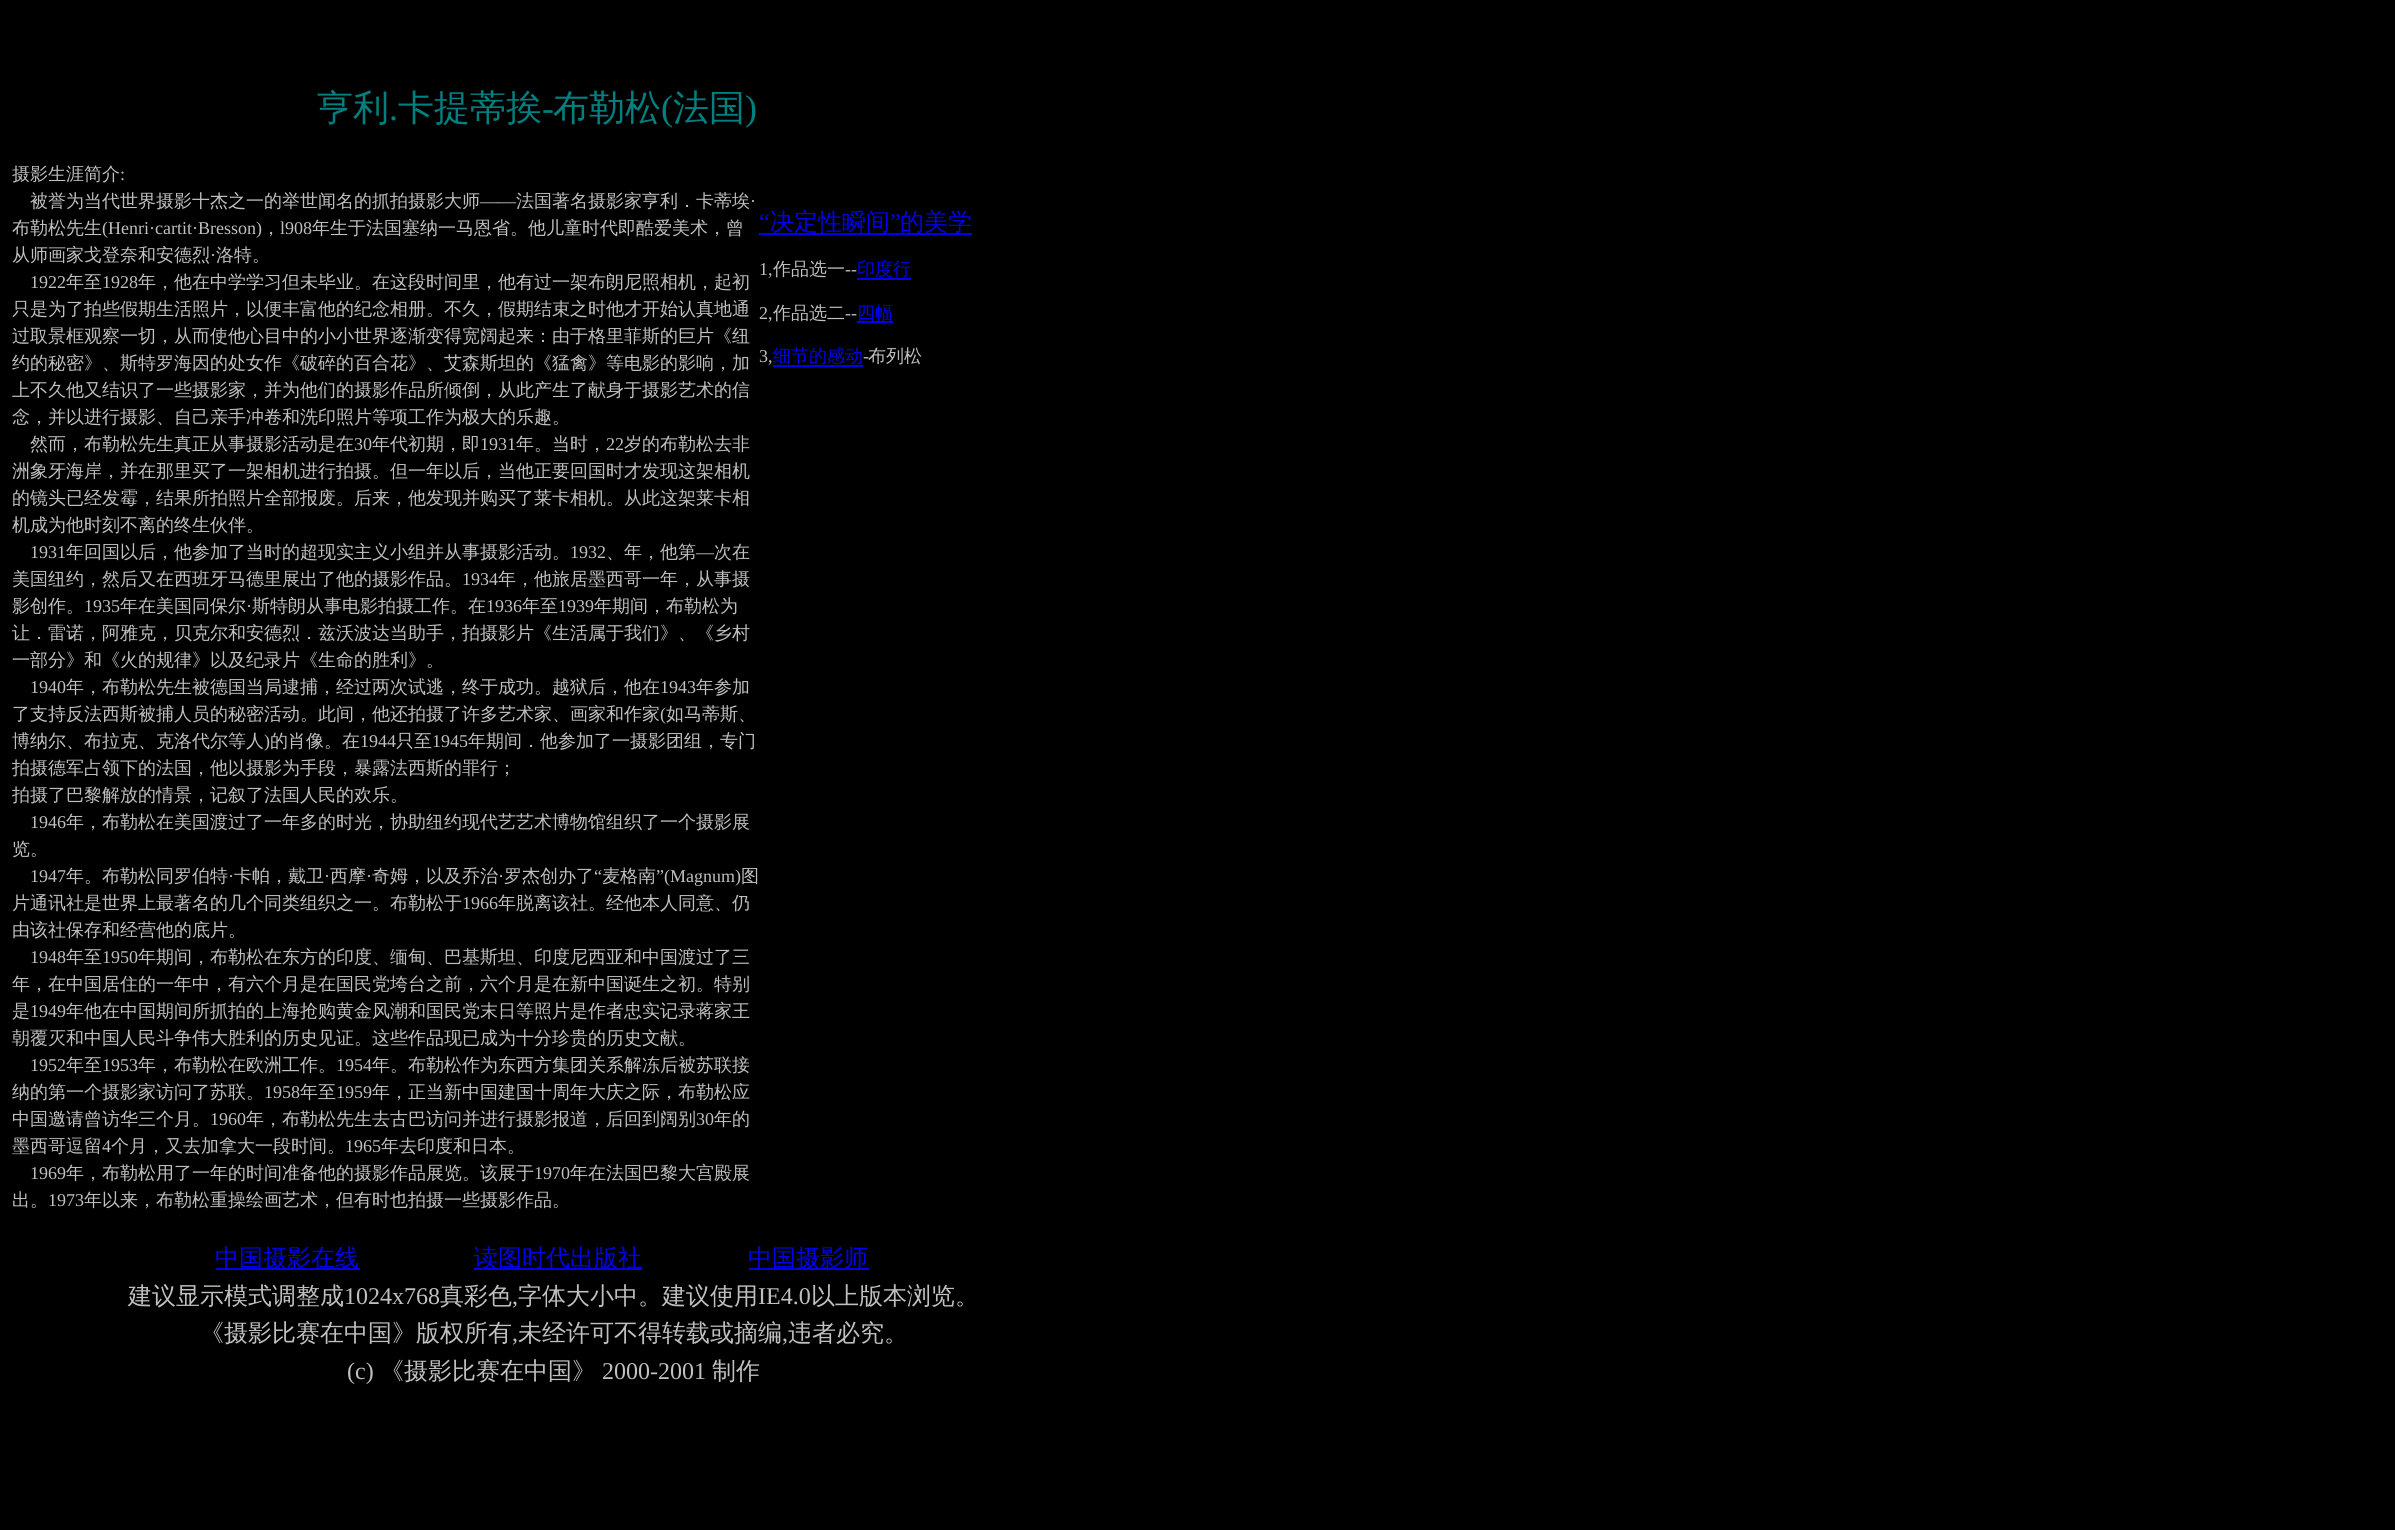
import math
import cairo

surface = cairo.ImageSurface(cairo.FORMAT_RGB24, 2395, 1530)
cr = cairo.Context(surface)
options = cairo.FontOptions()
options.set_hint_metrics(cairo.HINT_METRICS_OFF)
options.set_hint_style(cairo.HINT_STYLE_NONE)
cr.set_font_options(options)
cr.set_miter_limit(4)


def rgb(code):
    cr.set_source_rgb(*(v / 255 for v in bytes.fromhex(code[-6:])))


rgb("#000000")
cr.paint()
for x, y, w, h, color in [
    (759, 233, 213, 2, "#0000ee"),
    (857, 278, 54, 2, "#0000ee"),
    (857, 321, 36, 2, "#0000ee"),
    (773, 365, 90, 2, "#0000ee"),
    (216, 1268, 144, 2, "#0000ee"),
    (474, 1268, 168, 2, "#0000ee"),
    (749, 1268, 120, 2, "#0000ee"),
]:
    rgb(color)
    cr.rectangle(x, y, w, h)
    cr.fill()
cr.select_font_face("WenQuanYi Zen Hei Medium")
cr.set_font_size(36)
rgb("#008080")
cr.move_to(317, 120)
cr.show_text("亨利")
cr.move_to(398, 120)
cr.show_text("卡提蒂挨")
cr.select_font_face("Liberation Serif")
cr.move_to(542, 120)
cr.show_text("-")
cr.select_font_face("WenQuanYi Zen Hei Medium")
cr.move_to(553, 120)
cr.show_text("布勒松")
cr.select_font_face("Liberation Serif")
cr.move_to(661, 120)
cr.show_text("(")
cr.select_font_face("WenQuanYi Zen Hei Medium")
cr.move_to(673, 120)
cr.show_text("法国")
cr.select_font_face("Liberation Serif")
cr.move_to(745, 120)
cr.show_text(")")
cr.move_to(389, 120)
cr.show_text(".")
cr.select_font_face("WenQuanYi Zen Hei Medium")
cr.set_font_size(18)
rgb("#c0c0c0")
cr.move_to(12, 180)
cr.show_text("摄影生涯简介")
cr.select_font_face("Liberation Serif")
cr.move_to(120, 180)
cr.show_text(":")
cr.select_font_face("WenQuanYi Zen Hei Medium")
cr.move_to(30, 207)
cr.show_text("被誉为当代世界摄影十杰之一的举世闻名的抓拍摄影大师")
cr.select_font_face("Liberation Serif")
cr.move_to(480, 207)
cr.show_text("——")
cr.select_font_face("WenQuanYi Zen Hei Medium")
cr.move_to(516, 207)
cr.show_text("法国著名摄影家亨利．卡蒂埃")
cr.select_font_face("Liberation Serif")
cr.move_to(750, 207)
cr.show_text("·")
cr.select_font_face("WenQuanYi Zen Hei Medium")
cr.move_to(12, 234)
cr.show_text("布勒松先生")
cr.select_font_face("Liberation Serif")
cr.move_to(102, 234)
cr.show_text("(Henri·cartit·Bresson)")
cr.select_font_face("WenQuanYi Zen Hei Medium")
cr.move_to(262, 234)
cr.show_text("，")
cr.select_font_face("Liberation Serif")
cr.move_to(280, 234)
cr.show_text("l908")
cr.select_font_face("WenQuanYi Zen Hei Medium")
cr.move_to(312, 234)
cr.show_text("年生于法国塞纳一马恩省。他儿童时代即酷爱美术，曾")
cr.move_to(12, 261)
cr.show_text("从师画家戈登奈和安德烈")
cr.select_font_face("Liberation Serif")
cr.move_to(210, 261)
cr.show_text("·")
cr.select_font_face("WenQuanYi Zen Hei Medium")
cr.move_to(216, 261)
cr.show_text("洛特。")
cr.select_font_face("Liberation Serif")
cr.move_to(30, 288)
cr.show_text("1922")
cr.select_font_face("WenQuanYi Zen Hei Medium")
cr.move_to(66, 288)
cr.show_text("年至")
cr.select_font_face("Liberation Serif")
cr.move_to(102, 288)
cr.show_text("1928")
cr.select_font_face("WenQuanYi Zen Hei Medium")
for x, y, s in [
    (138, 288, "年，他在中学学习但未毕业。在这段时间里，他有过一架布朗尼照相机，起初"),
    (12, 315, "只是为了拍些假期生活照片，以便丰富他的纪念相册。不久，假期结束之时他才开始认真地通"),
    (12, 342, "过取景框观察一切，从而使他心目中的小小世界逐渐变得宽阔起来：由于格里菲斯的巨片《纽"),
    (12, 369, "约的秘密》、斯特罗海因的处女作《破碎的百合花》、艾森斯坦的《猛禽》等电影的影响，加"),
    (12, 396, "上不久他又结识了一些摄影家，并为他们的摄影作品所倾倒，从此产生了献身于摄影艺术的信"),
    (12, 423, "念，并以进行摄影、自己亲手冲卷和洗印照片等项工作为极大的乐趣。"),
    (30, 450, "然而，布勒松先生真正从事摄影活动是在"),
]:
    cr.move_to(x, y)
    cr.show_text(s)
cr.select_font_face("Liberation Serif")
cr.move_to(354, 450)
cr.show_text("30")
cr.select_font_face("WenQuanYi Zen Hei Medium")
cr.move_to(372, 450)
cr.show_text("年代初期，即")
cr.select_font_face("Liberation Serif")
cr.move_to(480, 450)
cr.show_text("1931")
cr.select_font_face("WenQuanYi Zen Hei Medium")
cr.move_to(516, 450)
cr.show_text("年。当时，")
cr.select_font_face("Liberation Serif")
cr.move_to(606, 450)
cr.show_text("22")
cr.select_font_face("WenQuanYi Zen Hei Medium")
for x, y, s in [
    (624, 450, "岁的布勒松去非"),
    (12, 477, "洲象牙海岸，并在那里买了一架相机进行拍摄。但一年以后，当他正要回国时才发现这架相机"),
    (12, 504, "的镜头已经发霉，结果所拍照片全部报废。后来，他发现并购买了莱卡相机。从此这架莱卡相"),
    (12, 531, "机成为他时刻不离的终生伙伴。"),
]:
    cr.move_to(x, y)
    cr.show_text(s)
cr.select_font_face("Liberation Serif")
cr.move_to(30, 558)
cr.show_text("1931")
cr.select_font_face("WenQuanYi Zen Hei Medium")
cr.move_to(66, 558)
cr.show_text("年回国以后，他参加了当时的超现实主义小组并从事摄影活动。")
cr.select_font_face("Liberation Serif")
cr.move_to(570, 558)
cr.show_text("1932")
cr.select_font_face("WenQuanYi Zen Hei Medium")
cr.move_to(606, 558)
cr.show_text("、年，他第")
cr.select_font_face("Liberation Serif")
cr.move_to(696, 558)
cr.show_text("—")
cr.select_font_face("WenQuanYi Zen Hei Medium")
cr.move_to(714, 558)
cr.show_text("次在")
cr.move_to(12, 585)
cr.show_text("美国纽约，然后又在西班牙马德里展出了他的摄影作品。")
cr.select_font_face("Liberation Serif")
cr.move_to(462, 585)
cr.show_text("1934")
cr.select_font_face("WenQuanYi Zen Hei Medium")
cr.move_to(498, 585)
cr.show_text("年，他旅居墨西哥一年，从事摄")
cr.move_to(12, 612)
cr.show_text("影创作。")
cr.select_font_face("Liberation Serif")
cr.move_to(84, 612)
cr.show_text("1935")
cr.select_font_face("WenQuanYi Zen Hei Medium")
cr.move_to(120, 612)
cr.show_text("年在美国同保尔")
cr.select_font_face("Liberation Serif")
cr.move_to(246, 612)
cr.show_text("·")
cr.select_font_face("WenQuanYi Zen Hei Medium")
cr.move_to(252, 612)
cr.show_text("斯特朗从事电影拍摄工作。在")
cr.select_font_face("Liberation Serif")
cr.move_to(486, 612)
cr.show_text("1936")
cr.select_font_face("WenQuanYi Zen Hei Medium")
cr.move_to(522, 612)
cr.show_text("年至")
cr.select_font_face("Liberation Serif")
cr.move_to(558, 612)
cr.show_text("1939")
cr.select_font_face("WenQuanYi Zen Hei Medium")
for x, y, s in [
    (594, 612, "年期间，布勒松为"),
    (12, 639, "让．雷诺，阿雅克，贝克尔和安德烈．兹沃波达当助手，拍摄影片《生活属于我们》、《乡村"),
    (12, 666, "一部分》和《火的规律》以及纪录片《生命的胜利》。"),
]:
    cr.move_to(x, y)
    cr.show_text(s)
cr.select_font_face("Liberation Serif")
cr.move_to(30, 693)
cr.show_text("1940")
cr.select_font_face("WenQuanYi Zen Hei Medium")
cr.move_to(66, 693)
cr.show_text("年，布勒松先生被德国当局逮捕，经过两次试逃，终于成功。越狱后，他在")
cr.select_font_face("Liberation Serif")
cr.move_to(660, 693)
cr.show_text("1943")
cr.select_font_face("WenQuanYi Zen Hei Medium")
cr.move_to(696, 693)
cr.show_text("年参加")
cr.move_to(12, 720)
cr.show_text("了支持反法西斯被捕人员的秘密活动。此间，他还拍摄了许多艺术家、画家和作家")
cr.select_font_face("Liberation Serif")
cr.move_to(660, 720)
cr.show_text("(")
cr.select_font_face("WenQuanYi Zen Hei Medium")
cr.move_to(666, 720)
cr.show_text("如马蒂斯、")
cr.move_to(12, 747)
cr.show_text("博纳尔、布拉克、克洛代尔等人")
cr.select_font_face("Liberation Serif")
cr.move_to(264, 747)
cr.show_text(")")
cr.select_font_face("WenQuanYi Zen Hei Medium")
cr.move_to(270, 747)
cr.show_text("的肖像。在")
cr.select_font_face("Liberation Serif")
cr.move_to(360, 747)
cr.show_text("1944")
cr.select_font_face("WenQuanYi Zen Hei Medium")
cr.move_to(396, 747)
cr.show_text("只至")
cr.select_font_face("Liberation Serif")
cr.move_to(432, 747)
cr.show_text("1945")
cr.select_font_face("WenQuanYi Zen Hei Medium")
for x, y, s in [
    (468, 747, "年期间．他参加了一摄影团组，专门"),
    (12, 774, "拍摄德军占领下的法国，他以摄影为手段，暴露法西斯的罪行；"),
    (12, 801, "拍摄了巴黎解放的情景，记叙了法国人民的欢乐。"),
]:
    cr.move_to(x, y)
    cr.show_text(s)
cr.select_font_face("Liberation Serif")
cr.move_to(30, 828)
cr.show_text("1946")
cr.select_font_face("WenQuanYi Zen Hei Medium")
cr.move_to(66, 828)
cr.show_text("年，布勒松在美国渡过了一年多的时光，协助纽约现代艺艺术博物馆组织了一个摄影展")
cr.move_to(12, 855)
cr.show_text("览。")
cr.select_font_face("Liberation Serif")
cr.move_to(30, 882)
cr.show_text("1947")
cr.select_font_face("WenQuanYi Zen Hei Medium")
for x, y, s in [
    (66, 882, "年。布勒松同罗伯特"),
    (234, 882, "卡帕，戴卫"),
    (330, 882, "西摩"),
    (372, 882, "奇姆，以及乔治"),
    (504, 882, "罗杰创办了"),
]:
    cr.move_to(x, y)
    cr.show_text(s)
cr.select_font_face("Liberation Serif")
cr.move_to(594, 882)
cr.show_text("“")
cr.select_font_face("WenQuanYi Zen Hei Medium")
cr.move_to(602, 882)
cr.show_text("麦格南")
cr.select_font_face("Liberation Serif")
cr.move_to(656, 882)
cr.show_text("”(Magnum)")
cr.select_font_face("WenQuanYi Zen Hei Medium")
cr.move_to(741, 882)
cr.show_text("图")
cr.select_font_face("Liberation Serif")
for x, y, s in [
    (228, 882, "·"),
    (324, 882, "·"),
    (366, 882, "·"),
    (498, 882, "·"),
]:
    cr.move_to(x, y)
    cr.show_text(s)
cr.select_font_face("WenQuanYi Zen Hei Medium")
cr.move_to(12, 909)
cr.show_text("片通讯社是世界上最著名的几个同类组织之一。布勒松于")
cr.select_font_face("Liberation Serif")
cr.move_to(462, 909)
cr.show_text("1966")
cr.select_font_face("WenQuanYi Zen Hei Medium")
cr.move_to(498, 909)
cr.show_text("年脱离该社。经他本人同意、仍")
cr.move_to(12, 936)
cr.show_text("由该社保存和经营他的底片。")
cr.select_font_face("Liberation Serif")
cr.move_to(30, 963)
cr.show_text("1948")
cr.select_font_face("WenQuanYi Zen Hei Medium")
cr.move_to(66, 963)
cr.show_text("年至")
cr.select_font_face("Liberation Serif")
cr.move_to(102, 963)
cr.show_text("1950")
cr.select_font_face("WenQuanYi Zen Hei Medium")
for x, y, s in [
    (138, 963, "年期间，布勒松在东方的印度、缅甸、巴基斯坦、印度尼西亚和中国渡过了三"),
    (12, 990, "年，在中国居住的一年中，有六个月是在国民党垮台之前，六个月是在新中国诞生之初。特别"),
    (12, 1017, "是"),
]:
    cr.move_to(x, y)
    cr.show_text(s)
cr.select_font_face("Liberation Serif")
cr.move_to(30, 1017)
cr.show_text("1949")
cr.select_font_face("WenQuanYi Zen Hei Medium")
cr.move_to(66, 1017)
cr.show_text("年他在中国期间所抓拍的上海抢购黄金风潮和国民党末日等照片是作者忠实记录蒋家王")
cr.move_to(12, 1044)
cr.show_text("朝覆灭和中国人民斗争伟大胜利的历史见证。这些作品现已成为十分珍贵的历史文献。")
cr.select_font_face("Liberation Serif")
cr.move_to(30, 1071)
cr.show_text("1952")
cr.select_font_face("WenQuanYi Zen Hei Medium")
cr.move_to(66, 1071)
cr.show_text("年至")
cr.select_font_face("Liberation Serif")
cr.move_to(102, 1071)
cr.show_text("1953")
cr.select_font_face("WenQuanYi Zen Hei Medium")
cr.move_to(138, 1071)
cr.show_text("年，布勒松在欧洲工作。")
cr.select_font_face("Liberation Serif")
cr.move_to(336, 1071)
cr.show_text("1954")
cr.select_font_face("WenQuanYi Zen Hei Medium")
cr.move_to(372, 1071)
cr.show_text("年。布勒松作为东西方集团关系解冻后被苏联接")
cr.move_to(12, 1098)
cr.show_text("纳的第一个摄影家访问了苏联。")
cr.select_font_face("Liberation Serif")
cr.move_to(264, 1098)
cr.show_text("1958")
cr.select_font_face("WenQuanYi Zen Hei Medium")
cr.move_to(300, 1098)
cr.show_text("年至")
cr.select_font_face("Liberation Serif")
cr.move_to(336, 1098)
cr.show_text("1959")
cr.select_font_face("WenQuanYi Zen Hei Medium")
cr.move_to(372, 1098)
cr.show_text("年，正当新中国建国十周年大庆之际，布勒松应")
cr.move_to(12, 1125)
cr.show_text("中国邀请曾访华三个月。")
cr.select_font_face("Liberation Serif")
cr.move_to(210, 1125)
cr.show_text("1960")
cr.select_font_face("WenQuanYi Zen Hei Medium")
cr.move_to(246, 1125)
cr.show_text("年，布勒松先生去古巴访问并进行摄影报道，后回到阔别")
cr.select_font_face("Liberation Serif")
cr.move_to(696, 1125)
cr.show_text("30")
cr.select_font_face("WenQuanYi Zen Hei Medium")
cr.move_to(714, 1125)
cr.show_text("年的")
cr.move_to(12, 1152)
cr.show_text("墨西哥逗留")
cr.select_font_face("Liberation Serif")
cr.move_to(102, 1152)
cr.show_text("4")
cr.select_font_face("WenQuanYi Zen Hei Medium")
cr.move_to(111, 1152)
cr.show_text("个月，又去加拿大一段时间。")
cr.select_font_face("Liberation Serif")
cr.move_to(345, 1152)
cr.show_text("1965")
cr.select_font_face("WenQuanYi Zen Hei Medium")
cr.move_to(381, 1152)
cr.show_text("年去印度和日本。")
cr.select_font_face("Liberation Serif")
cr.move_to(30, 1179)
cr.show_text("1969")
cr.select_font_face("WenQuanYi Zen Hei Medium")
cr.move_to(66, 1179)
cr.show_text("年，布勒松用了一年的时间准备他的摄影作品展览。该展于")
cr.select_font_face("Liberation Serif")
cr.move_to(534, 1179)
cr.show_text("1970")
cr.select_font_face("WenQuanYi Zen Hei Medium")
cr.move_to(570, 1179)
cr.show_text("年在法国巴黎大宫殿展")
cr.move_to(12, 1206)
cr.show_text("出。")
cr.select_font_face("Liberation Serif")
cr.move_to(48, 1206)
cr.show_text("1973")
cr.select_font_face("WenQuanYi Zen Hei Medium")
cr.move_to(84, 1206)
cr.show_text("年以来，布勒松重操绘画艺术，但有时也拍摄一些摄影作品。")
cr.select_font_face("Liberation Serif")
cr.set_font_size(24)
rgb("#0000ee")
cr.move_to(759, 230)
cr.show_text("“")
cr.select_font_face("WenQuanYi Zen Hei Medium")
cr.move_to(770, 230)
cr.show_text("决定性瞬间")
cr.select_font_face("Liberation Serif")
cr.move_to(890, 230)
cr.show_text("”")
cr.select_font_face("WenQuanYi Zen Hei Medium")
cr.move_to(900, 230)
cr.show_text("的美学")
cr.select_font_face("Liberation Serif")
cr.set_font_size(18)
rgb("#c0c0c0")
cr.move_to(759, 275)
cr.show_text("1,")
cr.select_font_face("WenQuanYi Zen Hei Medium")
cr.move_to(773, 275)
cr.show_text("作品选一")
cr.select_font_face("Liberation Serif")
cr.move_to(845, 275)
cr.show_text("--")
cr.select_font_face("WenQuanYi Zen Hei Medium")
rgb("#0000ee")
cr.move_to(857, 275)
cr.show_text("印度行")
cr.select_font_face("Liberation Serif")
rgb("#c0c0c0")
cr.move_to(759, 319)
cr.show_text("2,")
cr.select_font_face("WenQuanYi Zen Hei Medium")
cr.move_to(773, 319)
cr.show_text("作品选二")
cr.select_font_face("Liberation Serif")
cr.move_to(845, 319)
cr.show_text("--")
cr.select_font_face("WenQuanYi Zen Hei Medium")
rgb("#0000ee")
cr.move_to(857, 319)
cr.show_text("四幅")
cr.select_font_face("Liberation Serif")
rgb("#c0c0c0")
cr.move_to(759, 362)
cr.show_text("3,")
cr.select_font_face("WenQuanYi Zen Hei Medium")
rgb("#0000ee")
cr.move_to(773, 362)
cr.show_text("细节的感动")
cr.select_font_face("Liberation Serif")
rgb("#c0c0c0")
cr.move_to(863, 362)
cr.show_text("-")
cr.select_font_face("WenQuanYi Zen Hei Medium")
cr.move_to(868, 362)
cr.show_text("布列松")
cr.set_font_size(24)
rgb("#0000ee")
for x, y, s in [
    (215, 1266, "中国摄影在线"),
    (474, 1266, "读图时代出版社"),
    (748, 1266, "中国摄影师"),
]:
    cr.move_to(x, y)
    cr.show_text(s)
rgb("#c0c0c0")
cr.move_to(128, 1304)
cr.show_text("建议显示模式调整成")
cr.select_font_face("Liberation Serif")
cr.move_to(344, 1304)
cr.show_text("1024x768")
cr.select_font_face("WenQuanYi Zen Hei Medium")
cr.move_to(440, 1304)
cr.show_text("真彩色")
cr.select_font_face("Liberation Serif")
cr.move_to(512, 1304)
cr.show_text(",")
cr.select_font_face("WenQuanYi Zen Hei Medium")
cr.move_to(518, 1304)
cr.show_text("字体大小中。建议使用")
cr.select_font_face("Liberation Serif")
cr.move_to(758, 1304)
cr.show_text("IE4.0")
cr.select_font_face("WenQuanYi Zen Hei Medium")
cr.move_to(811, 1304)
cr.show_text("以上版本浏览。")
cr.move_to(200, 1341)
cr.show_text("《摄影比赛在中国》版权所有")
cr.select_font_face("Liberation Serif")
cr.move_to(512, 1341)
cr.show_text(",")
cr.select_font_face("WenQuanYi Zen Hei Medium")
cr.move_to(518, 1341)
cr.show_text("未经许可不得转载或摘编")
cr.select_font_face("Liberation Serif")
cr.move_to(782, 1341)
cr.show_text(",")
cr.select_font_face("WenQuanYi Zen Hei Medium")
cr.move_to(788, 1341)
cr.show_text("违者必究。")
cr.select_font_face("Liberation Serif")
cr.move_to(347, 1379)
cr.show_text("(c)")
cr.select_font_face("WenQuanYi Zen Hei Medium")
cr.move_to(380, 1379)
cr.show_text("《摄影比赛在中国》")
cr.select_font_face("Liberation Serif")
cr.move_to(602, 1379)
cr.show_text("2000-2001")
cr.select_font_face("WenQuanYi Zen Hei Medium")
cr.move_to(712, 1379)
cr.show_text("制作")
surface.write_to_png("page.png")
